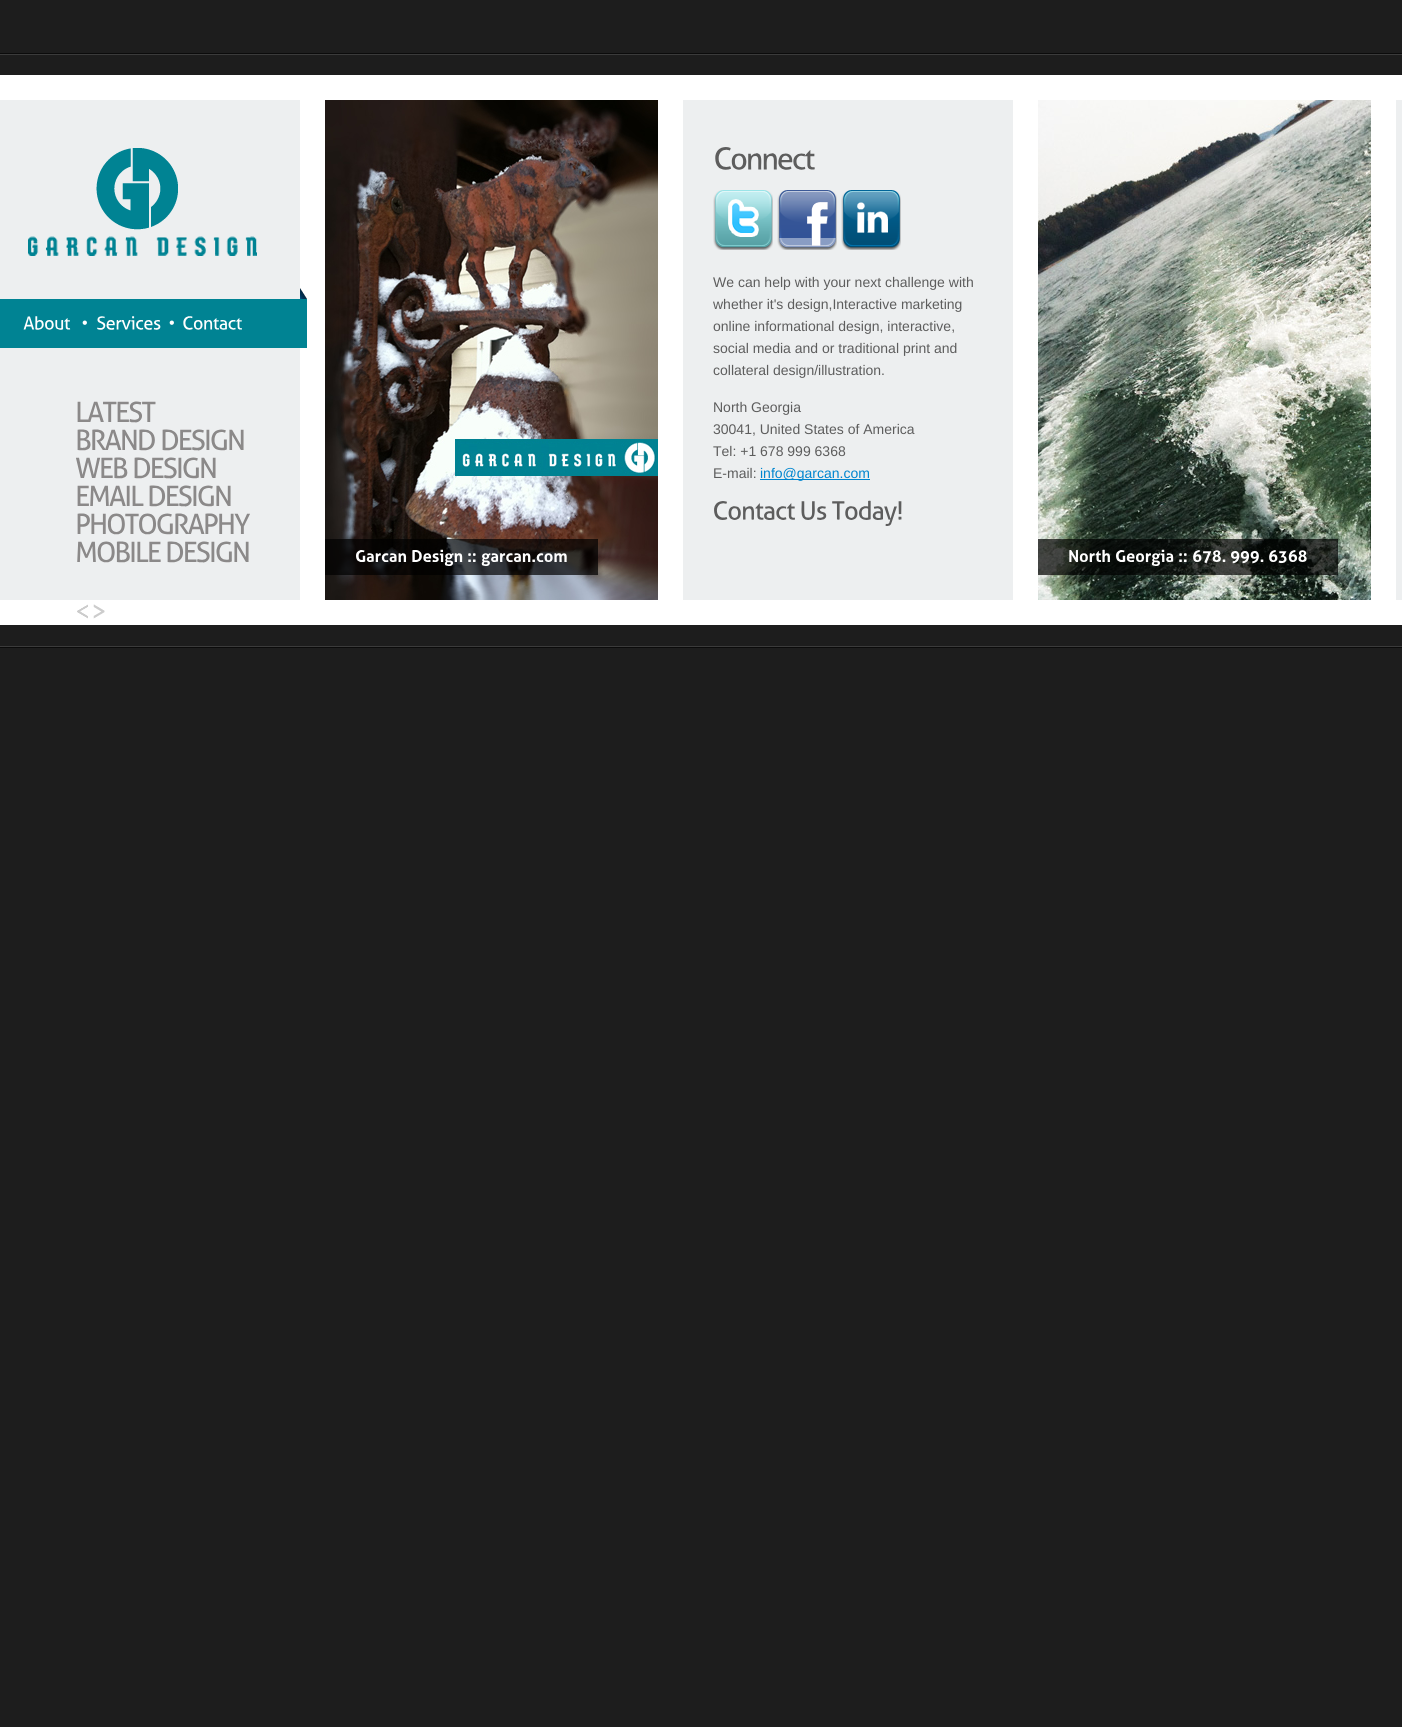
import math
import cairo

surface = cairo.ImageSurface(cairo.FORMAT_RGB24, 1402, 1727)
cr = cairo.Context(surface)
options = cairo.FontOptions()
options.set_hint_metrics(cairo.HINT_METRICS_OFF)
options.set_hint_style(cairo.HINT_STYLE_NONE)
cr.set_font_options(options)
cr.set_miter_limit(4)


def rgb(code):
    cr.set_source_rgb(*(v / 255 for v in bytes.fromhex(code[-6:])))


def image(path, x, y, w, h):
    cr.save()
    cr.set_source_surface(cairo.ImageSurface.create_from_png(path), x, y)
    cr.rectangle(x, y, w, h)
    cr.fill()
    cr.restore()


rgb("#1d1d1d")
cr.paint()
image("img/1.png", 0, 53, 1402, 2)
rgb("#ffffff")
cr.rectangle(0, 75, 1402, 550)
cr.fill()
rgb("#edeff0")
cr.rectangle(0, 100, 300, 500)
cr.fill()
image("img/2.png", 28, 148, 229, 108)
image("img/3.png", 0, 288, 307, 60)
image("img/4.png", 23, 316, 48, 14)
image("img/5.png", 97, 316, 64, 14)
image("img/6.png", 183, 316, 59, 14)
image("img/7.png", 77, 401, 79, 22)
image("img/8.png", 77, 429, 78, 22)
image("img/9.png", 162, 429, 82, 22)
image("img/10.png", 76, 457, 52, 22)
image("img/9.png", 134, 457, 82, 22)
image("img/11.png", 77, 485, 67, 21)
image("img/9.png", 149, 485, 82, 22)
image("img/12.png", 77, 513, 173, 22)
image("img/13.png", 77, 541, 84, 22)
image("img/9.png", 167, 541, 82, 22)
image("img/14.png", 325, 100, 333, 500)
cr.set_source_rgba(0, 0, 0, 0.7)
cr.rectangle(325, 539, 273, 36)
cr.fill()
image("img/15.png", 356, 550, 51, 12)
image("img/16.png", 412, 549, 51, 17)
image("img/17.png", 468, 553, 8, 9)
image("img/18.png", 481, 553, 86, 13)
rgb("#edeff0")
cr.rectangle(683, 100, 330, 500)
cr.fill()
image("img/19.png", 715, 147, 100, 23)
image("img/20.png", 713, 190, 60, 60)
image("img/21.png", 777, 190, 60, 60)
image("img/22.png", 841, 190, 60, 60)
rgb("#0085cf")
cr.rectangle(760, 479, 110, 1)
cr.fill()
image("img/23.png", 714, 501, 81, 19)
image("img/24.png", 801, 501, 26, 19)
image("img/25.png", 832, 500, 70, 26)
image("img/26.png", 1038, 100, 333, 500)
cr.set_source_rgba(0, 0, 0, 0.7)
cr.rectangle(1038, 539, 300, 36)
cr.fill()
image("img/27.png", 1069, 549, 41, 13)
image("img/28.png", 1116, 549, 58, 17)
image("img/29.png", 1179, 553, 8, 9)
image("img/30.png", 1193, 550, 33, 14)
image("img/31.png", 1231, 551, 33, 13)
image("img/32.png", 1269, 550, 38, 13)
rgb("#edeff0")
cr.rectangle(1396, 100, 6, 500)
cr.fill()
image("img/33.png", 77, 604, 11, 15)
image("img/34.png", 93, 604, 12, 15)
image("img/35.png", 0, 646, 1402, 2)
cr.select_font_face("Liberation Sans")
cr.set_font_size(16)
rgb("#ffffff")
cr.move_to(82, 328)
cr.show_text("•")
cr.move_to(169, 328)
cr.show_text("•")
cr.set_font_size(14)
rgb("#5d5d5d")
for x, y, s in [
    (713, 287, "We can help with your next challenge with"),
    (713, 309, "whether it's design,Interactive marketing"),
    (713, 331, "online informational design, interactive,"),
    (713, 353, "social media and or traditional print and"),
    (713, 375, "collateral design/illustration."),
    (713, 412, "North Georgia"),
    (713, 434, "30041, United States of America"),
    (713, 456, "Tel: +1 678 999 6368"),
    (713, 478, "E-mail:"),
]:
    cr.move_to(x, y)
    cr.show_text(s)
rgb("#0085cf")
cr.move_to(760, 478)
cr.show_text("info@garcan.com")
surface.write_to_png("page.png")
